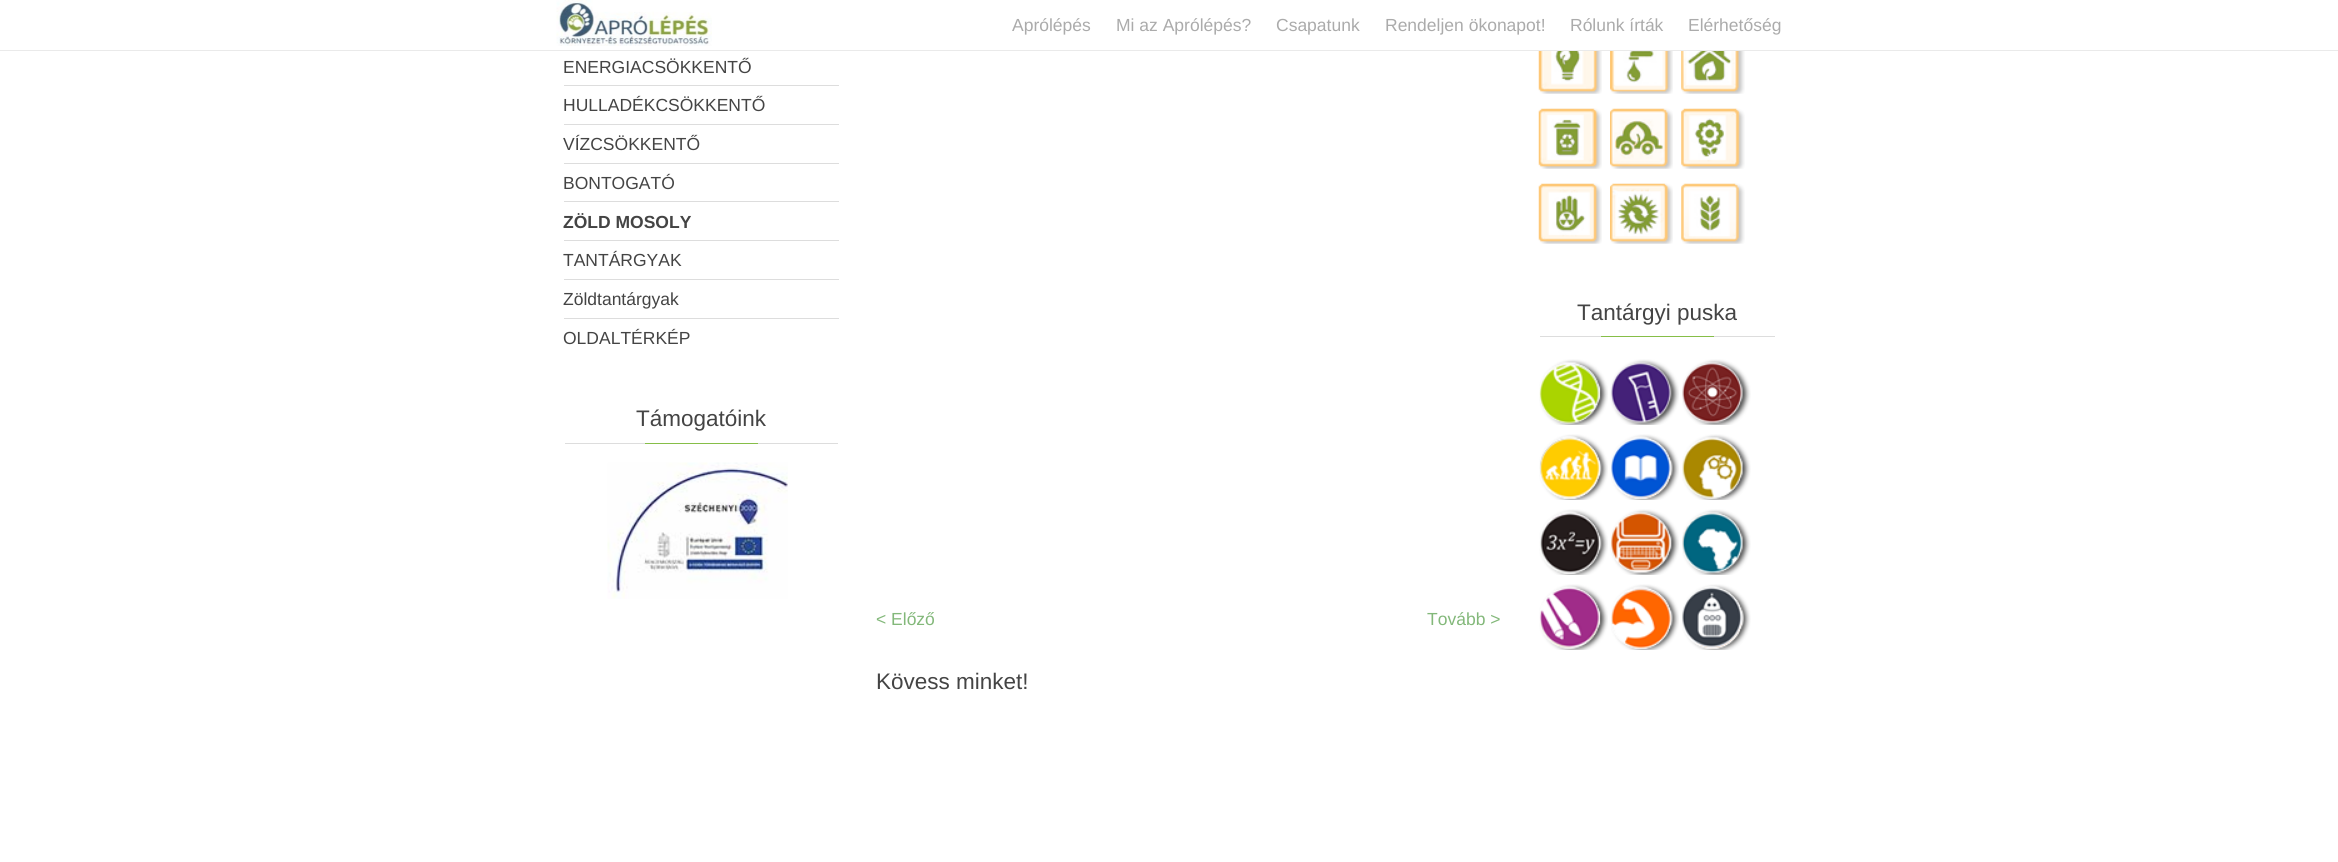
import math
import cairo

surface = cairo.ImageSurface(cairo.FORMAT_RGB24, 2338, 862)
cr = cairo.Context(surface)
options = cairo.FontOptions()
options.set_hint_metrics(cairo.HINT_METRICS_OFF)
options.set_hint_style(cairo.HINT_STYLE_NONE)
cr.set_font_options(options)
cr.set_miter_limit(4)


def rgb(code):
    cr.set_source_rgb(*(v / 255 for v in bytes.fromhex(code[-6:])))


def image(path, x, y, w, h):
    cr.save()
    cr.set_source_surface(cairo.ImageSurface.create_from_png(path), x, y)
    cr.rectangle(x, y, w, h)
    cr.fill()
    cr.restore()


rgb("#ffffff")
cr.paint()
rgb("#eaeaea")
cr.rectangle(0, 50, 2338, 1)
cr.fill()
image("img/1.png", 556, 0, 156, 46)
for x, y, w, h, color in [
    (564, 85, 275, 1, "#dddddd"),
    (564, 124, 275, 1, "#dddddd"),
    (564, 163, 275, 1, "#dddddd"),
    (564, 201, 275, 1, "#dddddd"),
    (564, 240, 275, 1, "#dddddd"),
    (564, 279, 275, 1, "#dddddd"),
    (564, 318, 275, 1, "#dddddd"),
    (565, 443, 273, 1, "#dddddd"),
    (645, 443, 113, 1, "#86be48"),
]:
    rgb(color)
    cr.rectangle(x, y, w, h)
    cr.fill()
image("img/2.png", 607, 462, 181, 137)
image("img/3.png", 1538, 51, 64, 43)
image("img/4.png", 1610, 51, 63, 43)
image("img/5.png", 1681, 51, 64, 43)
image("img/6.png", 1538, 108, 64, 61)
image("img/7.png", 1610, 108, 63, 61)
image("img/8.png", 1681, 108, 64, 61)
image("img/9.png", 1538, 183, 64, 61)
image("img/10.png", 1610, 183, 63, 61)
image("img/11.png", 1681, 183, 64, 61)
rgb("#dddddd")
cr.rectangle(1540, 336, 235, 1)
cr.fill()
rgb("#86be48")
cr.rectangle(1601, 336, 113, 1)
cr.fill()
image("img/12.png", 1539, 359, 69, 66)
image("img/13.png", 1610, 359, 69, 66)
image("img/14.png", 1682, 359, 69, 66)
image("img/15.png", 1539, 434, 69, 66)
image("img/16.png", 1611, 434, 68, 66)
image("img/17.png", 1682, 434, 69, 66)
image("img/18.png", 1539, 509, 69, 66)
image("img/19.png", 1610, 509, 69, 66)
image("img/20.png", 1682, 509, 69, 66)
image("img/21.png", 1539, 584, 69, 66)
image("img/22.png", 1611, 584, 68, 66)
image("img/23.png", 1682, 584, 69, 66)
cr.select_font_face("Liberation Sans")
cr.set_font_size(17.5)
rgb("#ababab")
for x, y, s in [
    (1012, 31, "Aprólépés"),
    (1116, 31, "Mi az Aprólépés?"),
    (1276, 31, "Csapatunk"),
    (1385, 31, "Rendeljen ökonapot!"),
    (1570, 31, "Rólunk írták"),
    (1688, 31, "Elérhetőség"),
]:
    cr.move_to(x, y)
    cr.show_text(s)
rgb("#444444")
for x, y, s in [
    (563, 73, "ENERGIACSÖKKENTŐ"),
    (563, 111, "HULLADÉKCSÖKKENTŐ"),
    (563, 150, "VÍZCSÖKKENTŐ"),
    (563, 189, "BONTOGATÓ"),
]:
    cr.move_to(x, y)
    cr.show_text(s)
cr.select_font_face("Liberation Sans", cairo.FONT_SLANT_NORMAL, cairo.FONT_WEIGHT_BOLD)
cr.move_to(563, 228)
cr.show_text("ZÖLD MOSOLY")
cr.select_font_face("Liberation Sans")
for x, y, s in [
    (563, 266, "TANTÁRGYAK"),
    (563, 305, "Zöldtantárgyak"),
    (563, 344, "OLDALTÉRKÉP"),
]:
    cr.move_to(x, y)
    cr.show_text(s)
cr.set_font_size(22.5)
cr.move_to(636, 426)
cr.show_text("Támogatóink")
cr.move_to(1577, 320)
cr.show_text("Tantárgyi puska")
cr.set_font_size(17.5)
rgb("#83b87a")
cr.move_to(876, 625)
cr.show_text("< Előző")
cr.move_to(1427, 625)
cr.show_text("Tovább >")
cr.set_font_size(22.5)
rgb("#444444")
cr.move_to(876, 689)
cr.show_text("Kövess minket!")
surface.write_to_png("page.png")
